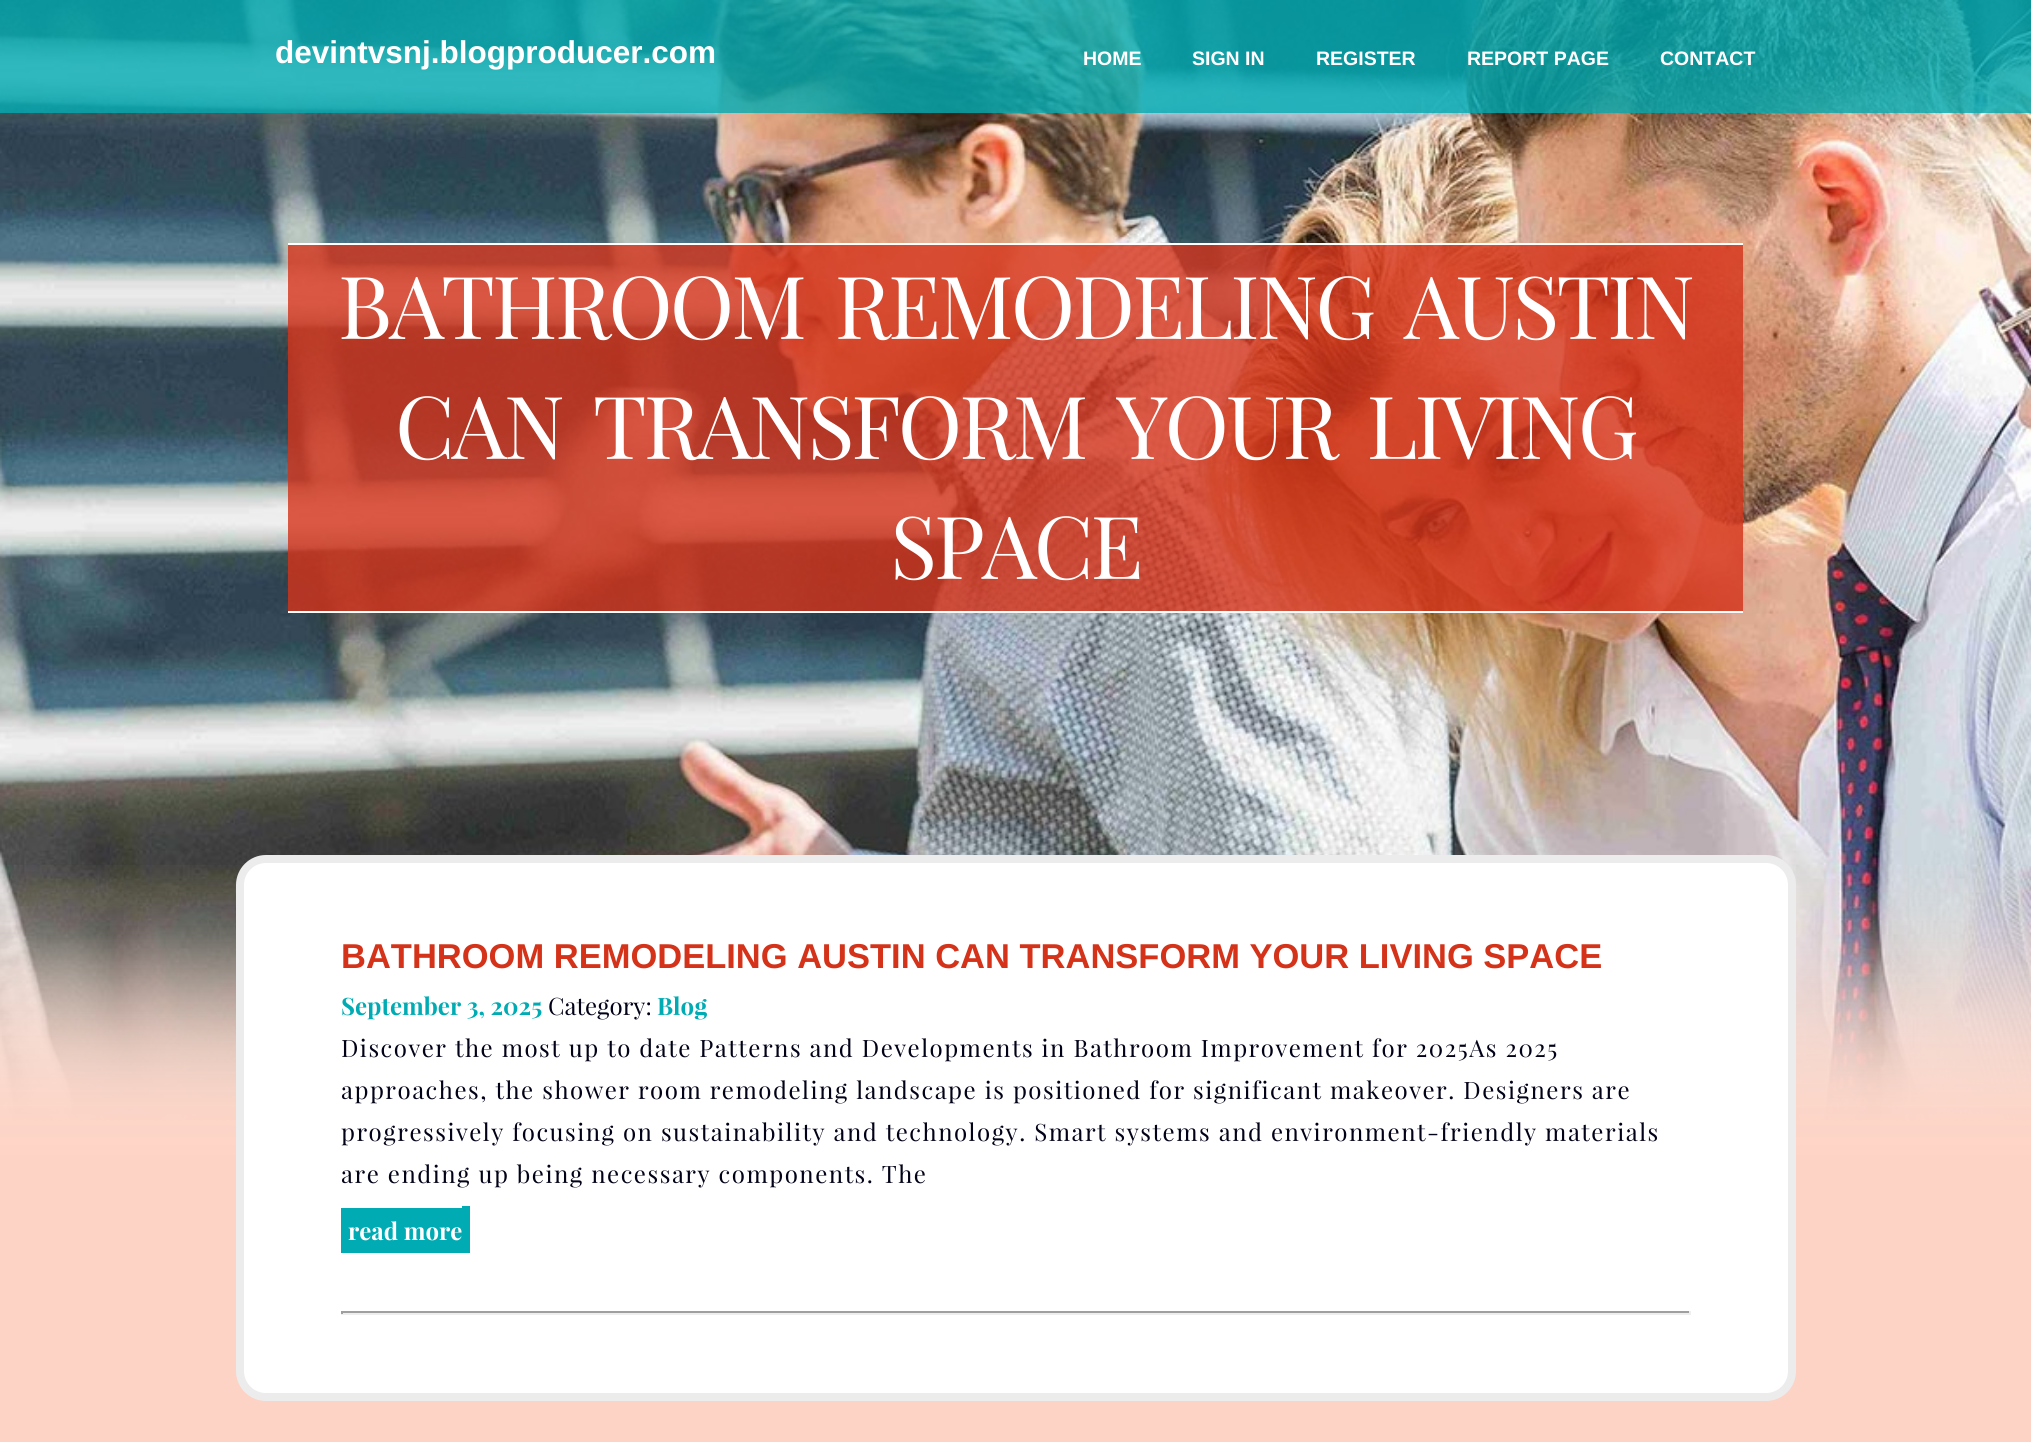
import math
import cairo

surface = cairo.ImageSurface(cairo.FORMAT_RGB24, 2031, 1442)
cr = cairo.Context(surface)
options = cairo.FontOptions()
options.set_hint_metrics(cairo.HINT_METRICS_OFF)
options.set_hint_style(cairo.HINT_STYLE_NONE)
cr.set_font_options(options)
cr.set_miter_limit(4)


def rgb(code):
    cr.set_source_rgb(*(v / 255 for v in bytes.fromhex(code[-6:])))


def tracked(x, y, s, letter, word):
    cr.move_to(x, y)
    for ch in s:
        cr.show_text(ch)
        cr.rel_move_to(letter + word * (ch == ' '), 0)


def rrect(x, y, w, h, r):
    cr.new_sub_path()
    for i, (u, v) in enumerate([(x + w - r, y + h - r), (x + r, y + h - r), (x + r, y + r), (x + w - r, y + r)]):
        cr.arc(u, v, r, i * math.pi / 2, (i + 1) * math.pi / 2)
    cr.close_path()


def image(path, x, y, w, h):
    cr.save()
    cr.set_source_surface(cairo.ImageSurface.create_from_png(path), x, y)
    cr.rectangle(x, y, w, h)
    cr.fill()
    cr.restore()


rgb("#fdd3c5")
cr.paint()
image("img/1.png", 0, 0, 2031, 1120)
cr.set_source_rgba(0, 0.671, 0.702, 0.8)
cr.rectangle(0, 0, 2031, 113)
cr.fill()
cr.set_source_rgba(0.831, 0.196, 0.098, 0.8)
cr.rectangle(288, 245, 1455, 366)
cr.fill()
rgb("#ffffff")
cr.rectangle(288, 243, 1455, 2)
cr.rectangle(288, 611, 1455, 2)
cr.fill()
image("img/2.png", 0, 865, 2031, 290)
rrect(240, 859, 1552, 538, 26)
cr.fill_preserve()
rgb("#ececec")
cr.set_line_width(8)
cr.stroke()
for x, y, w, h, color in [
    (341, 1208, 121, 45, "#00abb3"),
    (462, 1206, 8, 47, "#00abb3"),
    (341, 1311, 1350, 2, "#9f9f9f"),
    (1689, 1311, 2, 3, "#eeeeee"),
    (341, 1313, 1350, 2, "#eeeeee"),
    (341, 1311, 2, 3, "#9f9f9f"),
]:
    rgb(color)
    cr.rectangle(x, y, w, h)
    cr.fill()
cr.select_font_face("Liberation Sans", cairo.FONT_SLANT_NORMAL, cairo.FONT_WEIGHT_BOLD)
cr.set_font_size(31.5)
rgb("#ffffff")
cr.move_to(275, 63)
cr.show_text("devintvsnj.blogproducer.com")
cr.set_font_size(19.5)
for x, y, s in [
    (1083, 65, "HOME"),
    (1192, 65, "SIGN IN"),
    (1316, 65, "REGISTER"),
    (1467, 65, "REPORT PAGE"),
    (1660, 65, "CONTACT"),
]:
    cr.move_to(x, y)
    cr.show_text(s)
cr.select_font_face("Playfair Display")
cr.set_font_size(87)
tracked(338, 339, "BATHROOM REMODELING AUSTIN", -3, 12)
tracked(395, 459, "CAN TRANSFORM YOUR LIVING", -3, 12)
tracked(890, 579, "SPACE", -3, 0)
cr.select_font_face("Liberation Sans", cairo.FONT_SLANT_NORMAL, cairo.FONT_WEIGHT_BOLD)
cr.set_font_size(34.5)
rgb("#d43219")
cr.move_to(341, 968)
cr.show_text("BATHROOM REMODELING AUSTIN CAN TRANSFORM YOUR LIVING SPACE")
cr.select_font_face("Playfair Display", cairo.FONT_SLANT_NORMAL, cairo.FONT_WEIGHT_BOLD)
cr.set_font_size(24)
rgb("#00abb3")
cr.move_to(341, 1015)
cr.show_text("September 3, 2025")
cr.select_font_face("Playfair Display")
rgb("#010118")
cr.move_to(548, 1015)
cr.show_text("Category:")
cr.select_font_face("Playfair Display", cairo.FONT_SLANT_NORMAL, cairo.FONT_WEIGHT_BOLD)
rgb("#00abb3")
cr.move_to(657, 1015)
cr.show_text("Blog")
cr.select_font_face("Playfair Display")
rgb("#010118")
for x, y, s in [
    (341, 1057, "Discover the most up to date Patterns and Developments in Bathroom Improvement for 2025As 2025"),
    (341, 1099, "approaches, the shower room remodeling landscape is positioned for significant makeover. Designers are"),
    (341, 1141, "progressively focusing on sustainability and technology. Smart systems and environment-friendly materials"),
    (341, 1183, "are ending up being necessary components. The"),
]:
    tracked(x, y, s, 1.5, 0)
cr.select_font_face("Playfair Display", cairo.FONT_SLANT_NORMAL, cairo.FONT_WEIGHT_BOLD)
rgb("#ffffff")
cr.move_to(348, 1240)
cr.show_text("read more")
surface.write_to_png("page.png")
